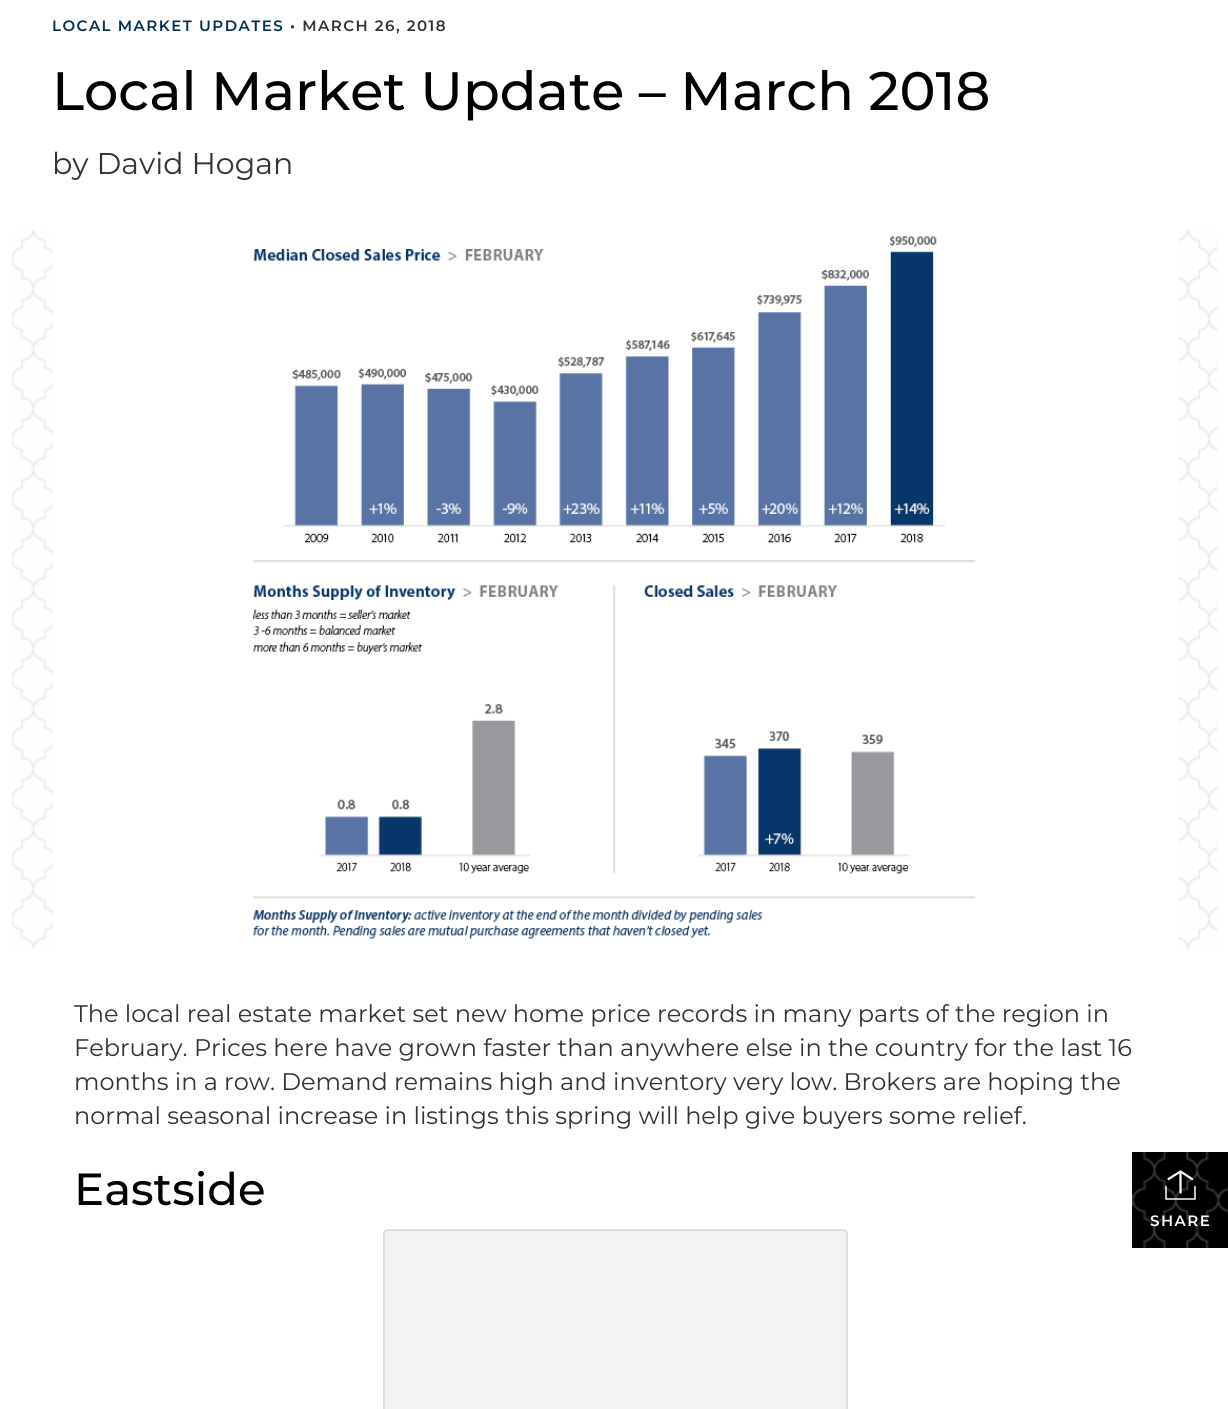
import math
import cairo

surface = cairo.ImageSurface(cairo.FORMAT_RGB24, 1228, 1409)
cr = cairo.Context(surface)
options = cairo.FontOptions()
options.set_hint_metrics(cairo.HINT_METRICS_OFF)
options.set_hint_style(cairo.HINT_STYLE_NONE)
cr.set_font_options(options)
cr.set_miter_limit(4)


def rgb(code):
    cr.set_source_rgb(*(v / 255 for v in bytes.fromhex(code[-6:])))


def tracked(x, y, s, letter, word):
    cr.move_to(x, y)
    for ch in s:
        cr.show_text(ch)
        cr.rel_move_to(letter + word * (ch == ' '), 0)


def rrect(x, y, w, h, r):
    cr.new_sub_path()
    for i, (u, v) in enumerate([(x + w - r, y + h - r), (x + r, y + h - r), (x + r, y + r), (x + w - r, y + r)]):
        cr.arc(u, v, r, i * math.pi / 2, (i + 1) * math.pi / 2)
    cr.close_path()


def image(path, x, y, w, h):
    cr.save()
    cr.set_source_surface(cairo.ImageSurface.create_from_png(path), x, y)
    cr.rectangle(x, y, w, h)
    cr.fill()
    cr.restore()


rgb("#ffffff")
cr.paint()
rgb("#fcfcfc")
cr.rectangle(12, 230, 1206, 720)
cr.fill()
image("img/1.png", 12, 229, 1206, 720)
rgb("#ffffff")
cr.rectangle(53, 229, 1125, 721)
cr.fill()
image("img/2.png", 252, 235, 724, 704)
rgb("#f3f3f3")
rrect(384, 1230, 463, 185, 4)
cr.fill_preserve()
rgb("#dddddd")
cr.stroke()
image("img/3.png", 1132, 1152, 96, 96)
cr.new_path()
cr.move_to(1166, 1186.5)
cr.line_to(1166, 1199)
cr.line_to(1195, 1199)
cr.line_to(1195, 1186.5)
rgb("#ffffff")
cr.set_line_width(1.5)
cr.set_line_cap(cairo.LINE_CAP_ROUND)
cr.stroke()
cr.new_path()
cr.move_to(1180.5, 1192.5)
cr.line_to(1180.5, 1172)
cr.set_line_width(2.2)
cr.stroke()
cr.new_path()
cr.move_to(1168.5, 1179)
cr.line_to(1180.5, 1171.5)
cr.line_to(1192, 1179)
cr.set_line_join(cairo.LINE_JOIN_ROUND)
cr.stroke()
cr.select_font_face("Montserrat SemiBold")
cr.set_font_size(15)
rgb("#003057")
tracked(52, 31, "LOCAL MARKET UPDATES", 1.5, 0)
rgb("#333333")
tracked(290, 31, "• MARCH 26, 2018", 1.5, 0)
cr.select_font_face("Montserrat Medium")
cr.set_font_size(54)
rgb("#000000")
cr.move_to(52, 110)
cr.show_text("Local Market Update – March 2018")
cr.select_font_face("Montserrat")
cr.set_font_size(30)
rgb("#333333")
cr.move_to(52, 174)
cr.show_text("by David Hogan")
cr.set_font_size(24)
for x, y, s in [
    (74, 1022, "The local real estate market set new home price records in many parts of the region in"),
    (74, 1056, "February. Prices here have grown faster than anywhere else in the country for the last 16"),
    (74, 1090, "months in a row. Demand remains high and inventory very low. Brokers are hoping the"),
    (74, 1124, "normal seasonal increase in listings this spring will help give buyers some relief."),
]:
    cr.move_to(x, y)
    cr.show_text(s)
cr.select_font_face("Montserrat Medium")
cr.set_font_size(45)
rgb("#000000")
cr.move_to(74, 1205)
cr.show_text("Eastside")
cr.select_font_face("Montserrat SemiBold")
cr.set_font_size(15)
rgb("#ffffff")
tracked(1150, 1226, "SHARE", 1.5, 0)
surface.write_to_png("page.png")
